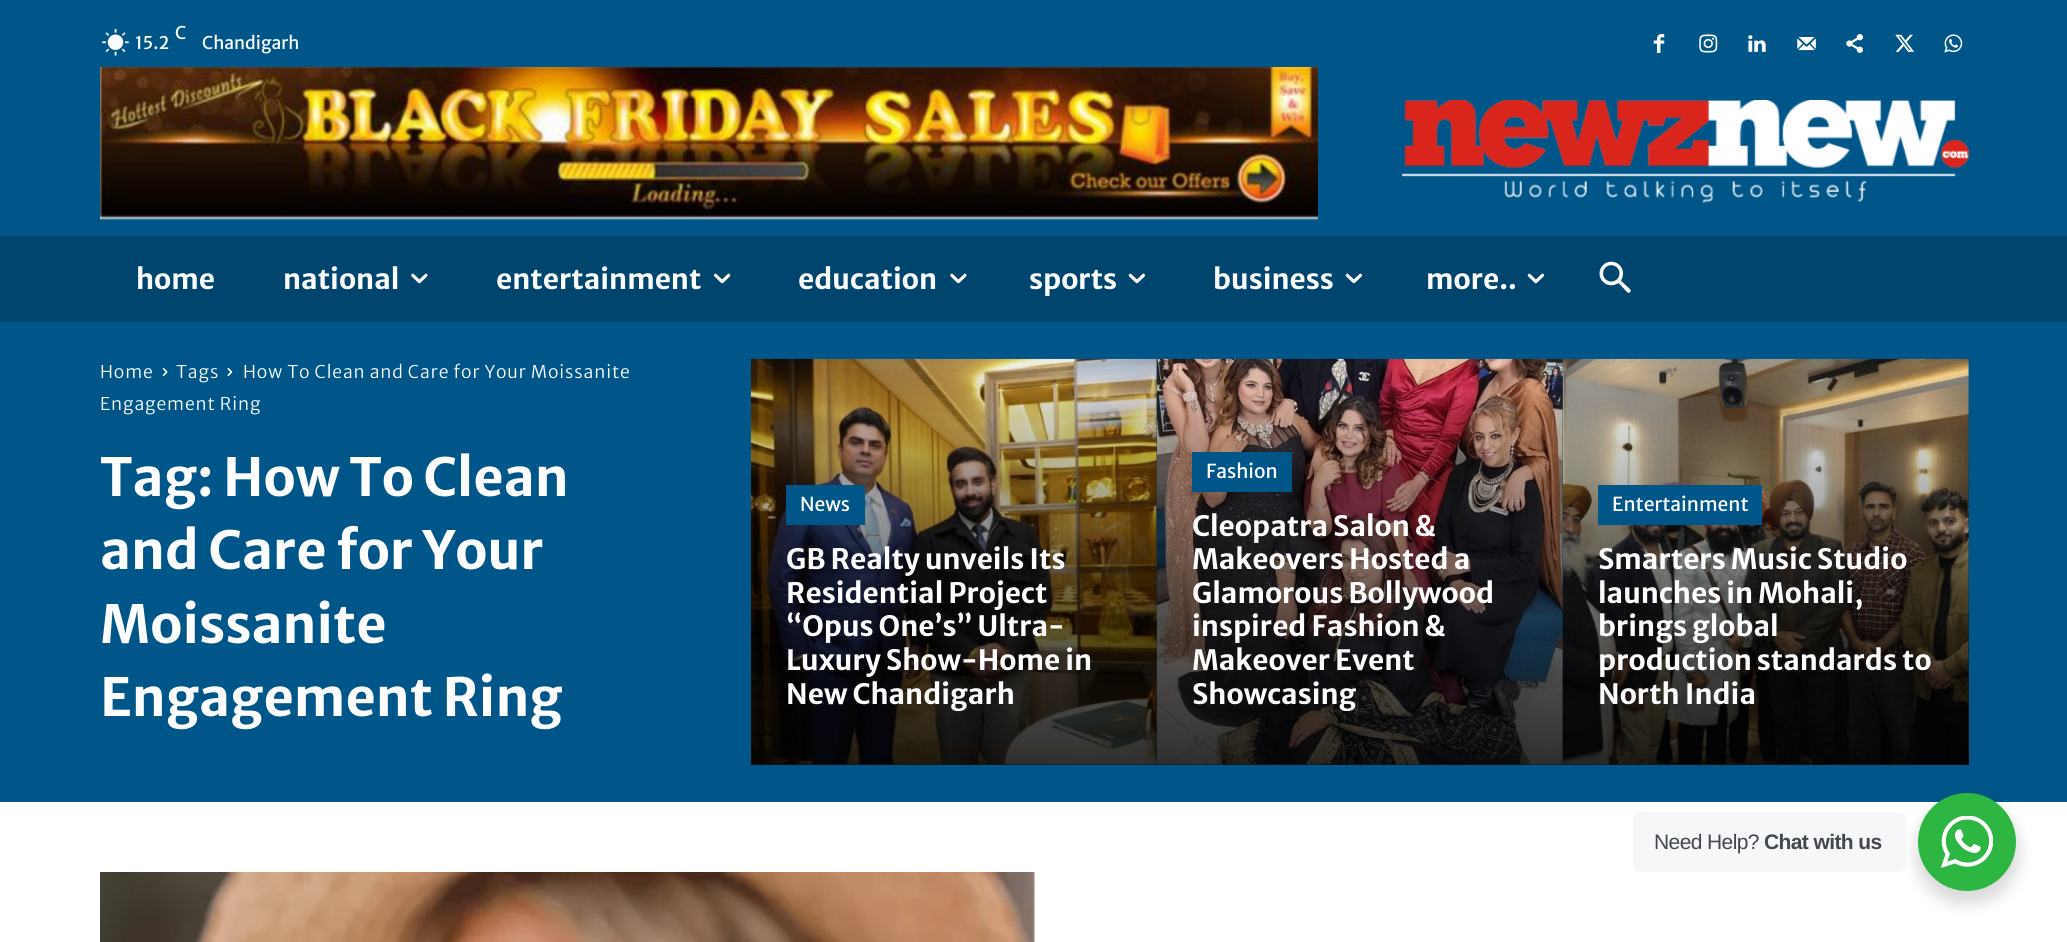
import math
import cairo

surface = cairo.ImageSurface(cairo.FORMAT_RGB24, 2067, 942)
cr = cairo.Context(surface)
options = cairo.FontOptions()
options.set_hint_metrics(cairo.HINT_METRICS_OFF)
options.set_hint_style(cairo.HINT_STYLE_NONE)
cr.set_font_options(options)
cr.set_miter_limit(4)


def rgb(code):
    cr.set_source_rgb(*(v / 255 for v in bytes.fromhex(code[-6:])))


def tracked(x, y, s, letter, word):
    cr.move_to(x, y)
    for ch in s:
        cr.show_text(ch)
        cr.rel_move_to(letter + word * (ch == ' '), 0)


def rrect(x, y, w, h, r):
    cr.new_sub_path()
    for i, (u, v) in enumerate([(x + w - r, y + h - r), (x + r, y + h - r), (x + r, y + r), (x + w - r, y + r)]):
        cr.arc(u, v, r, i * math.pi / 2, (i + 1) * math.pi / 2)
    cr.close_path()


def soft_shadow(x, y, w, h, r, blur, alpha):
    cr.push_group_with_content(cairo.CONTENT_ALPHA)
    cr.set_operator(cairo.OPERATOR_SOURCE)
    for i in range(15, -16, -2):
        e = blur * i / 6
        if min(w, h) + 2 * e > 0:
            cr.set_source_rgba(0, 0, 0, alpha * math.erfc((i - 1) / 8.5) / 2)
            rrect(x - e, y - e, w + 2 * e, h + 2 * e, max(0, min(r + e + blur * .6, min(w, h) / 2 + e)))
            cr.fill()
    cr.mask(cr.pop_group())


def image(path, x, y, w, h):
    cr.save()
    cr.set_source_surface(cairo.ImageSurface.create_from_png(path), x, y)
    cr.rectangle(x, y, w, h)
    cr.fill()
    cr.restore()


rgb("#ffffff")
cr.paint()
rgb("#005689")
cr.rectangle(0, 0, 2067, 236)
cr.fill()
image("img/1.png", 102, 29, 27, 27)
image("img/2.png", 1653, 34, 12, 19)
image("img/3.png", 1699, 34, 19, 19)
image("img/4.png", 1748, 35, 18, 17)
image("img/5.png", 1797, 37, 19, 14)
image("img/6.png", 1846, 34, 17, 19)
image("img/7.png", 1895, 34, 19, 18)
image("img/8.png", 1944, 34, 19, 19)
image("img/9.png", 100, 67, 1218, 153)
image("img/10.png", 1402, 100, 567, 104)
rgb("#00456e")
cr.rectangle(0, 236, 2067, 86)
cr.fill()
image("img/11.png", 411, 273, 17, 11)
image("img/12.png", 714, 273, 17, 11)
image("img/11.png", 950, 273, 17, 11)
image("img/13.png", 1128, 273, 17, 11)
image("img/13.png", 1345, 273, 17, 11)
image("img/13.png", 1527, 273, 17, 11)
image("img/14.png", 1599, 261, 32, 32)
rgb("#005689")
cr.rectangle(0, 322, 2067, 480)
cr.fill()
image("img/15.png", 162, 368, 6, 8)
image("img/16.png", 227, 368, 6, 8)
image("img/17.png", 750, 358, 407, 407)
image("img/18.png", 1156, 358, 407, 407)
gradient = cairo.LinearGradient(954, 765, 954, 359)
gradient.add_color_stop_rgba(0, 0, 0, 0, 0.8)
gradient.add_color_stop_rgba(0.45, 0, 0, 0, 0.5)
gradient.add_color_stop_rgba(1, 0, 0, 0, 0)
cr.set_source(gradient)
cr.rectangle(751, 369, 406, 396)
cr.fill()
rgb("#005689")
cr.rectangle(786, 485, 79, 40)
cr.fill()
image("img/19.png", 1562, 358, 407, 407)
gradient = cairo.LinearGradient(1360, 765, 1360, 359)
gradient.add_color_stop_rgba(0, 0, 0, 0, 0.8)
gradient.add_color_stop_rgba(0.45, 0, 0, 0, 0.5)
gradient.add_color_stop_rgba(1, 0, 0, 0, 0)
cr.set_source(gradient)
cr.rectangle(1157, 369, 406, 396)
cr.fill()
rgb("#005689")
cr.rectangle(1192, 452, 100, 40)
cr.fill()
gradient = cairo.LinearGradient(1766, 765, 1766, 359)
gradient.add_color_stop_rgba(0, 0, 0, 0, 0.8)
gradient.add_color_stop_rgba(0.45, 0, 0, 0, 0.5)
gradient.add_color_stop_rgba(1, 0, 0, 0, 0)
cr.set_source(gradient)
cr.rectangle(1563, 369, 406, 396)
cr.fill()
rgb("#005689")
cr.rectangle(1598, 485, 164, 40)
cr.fill()
image("img/20.png", 100, 872, 935, 70)
rgb("#000000")
soft_shadow(1915, 800, 105, 105, 52.5, 7, 0.14)
rgb("#f5f7f9")
rrect(1633, 812, 273, 60, 7)
cr.fill()
rgb("#2db742")
cr.arc(1967, 842, 49, 0, 2 * math.pi)
cr.fill()
image("img/21.png", 1941, 816, 52, 52)
cr.select_font_face("Merriweather Sans")
cr.set_font_size(17.5)
rgb("#ffffff")
for x, y, s in [
    (175, 39, "C"),
    (135, 49, "15.2"),
    (202, 49, "Chandigarh"),
]:
    cr.move_to(x, y)
    cr.show_text(s)
cr.select_font_face("Merriweather Sans", cairo.FONT_SLANT_NORMAL, cairo.FONT_WEIGHT_BOLD)
cr.set_font_size(28)
for x, y, s in [
    (136, 289, "home"),
    (283, 289, "national"),
    (496, 289, "entertainment"),
    (798, 289, "education"),
    (1029, 289, "sports"),
    (1213, 289, "business"),
    (1426, 289, "more.."),
]:
    cr.move_to(x, y)
    cr.show_text(s)
cr.select_font_face("Merriweather Sans Light")
cr.set_font_size(17.5)
for x, y, s in [
    (100, 378, "Home"),
    (176, 378, "Tags"),
    (243, 378, "How To Clean and Care for Your Moissanite"),
    (100, 410, "Engagement Ring"),
]:
    tracked(x, y, s, 0.9, 0)
cr.select_font_face("Merriweather Sans", cairo.FONT_SLANT_NORMAL, cairo.FONT_WEIGHT_BOLD)
cr.set_font_size(52.5)
for x, y, s in [
    (100, 496, "Tag: How To Clean"),
    (100, 569, "and Care for Your"),
    (100, 643, "Moissanite"),
    (100, 716, "Engagement Ring"),
]:
    cr.move_to(x, y)
    cr.show_text(s)
cr.select_font_face("Merriweather Sans")
cr.set_font_size(19.25)
cr.move_to(800, 511)
cr.show_text("News")
cr.select_font_face("Merriweather Sans", cairo.FONT_SLANT_NORMAL, cairo.FONT_WEIGHT_BOLD)
cr.set_font_size(28)
for x, y, s in [
    (786, 569, "GB Realty unveils Its"),
    (786, 603, "Residential Project"),
    (786, 636, "“Opus One’s” Ultra-"),
    (786, 670, "Luxury Show-Home in"),
    (786, 704, "New Chandigarh"),
]:
    cr.move_to(x, y)
    cr.show_text(s)
cr.select_font_face("Merriweather Sans")
cr.set_font_size(19.25)
cr.move_to(1206, 478)
cr.show_text("Fashion")
cr.select_font_face("Merriweather Sans", cairo.FONT_SLANT_NORMAL, cairo.FONT_WEIGHT_BOLD)
cr.set_font_size(28)
for x, y, s in [
    (1192, 536, "Cleopatra Salon &"),
    (1192, 569, "Makeovers Hosted a"),
    (1192, 603, "Glamorous Bollywood"),
    (1192, 636, "inspired Fashion &"),
    (1192, 670, "Makeover Event"),
    (1192, 704, "Showcasing"),
]:
    cr.move_to(x, y)
    cr.show_text(s)
cr.select_font_face("Merriweather Sans")
cr.set_font_size(19.25)
cr.move_to(1612, 511)
cr.show_text("Entertainment")
cr.select_font_face("Merriweather Sans", cairo.FONT_SLANT_NORMAL, cairo.FONT_WEIGHT_BOLD)
cr.set_font_size(28)
for x, y, s in [
    (1598, 569, "Smarters Music Studio"),
    (1598, 603, "launches in Mohali,"),
    (1598, 636, "brings global"),
    (1598, 670, "production standards to"),
    (1598, 704, "North India"),
]:
    cr.move_to(x, y)
    cr.show_text(s)
cr.select_font_face("Liberation Sans")
cr.set_font_size(21)
rgb("#43474e")
tracked(1654, 849, "Need Help?", -0.6, 0)
cr.select_font_face("Liberation Sans", cairo.FONT_SLANT_NORMAL, cairo.FONT_WEIGHT_BOLD)
tracked(1764, 849, "Chat with us", -0.6, 0)
surface.write_to_png("page.png")
